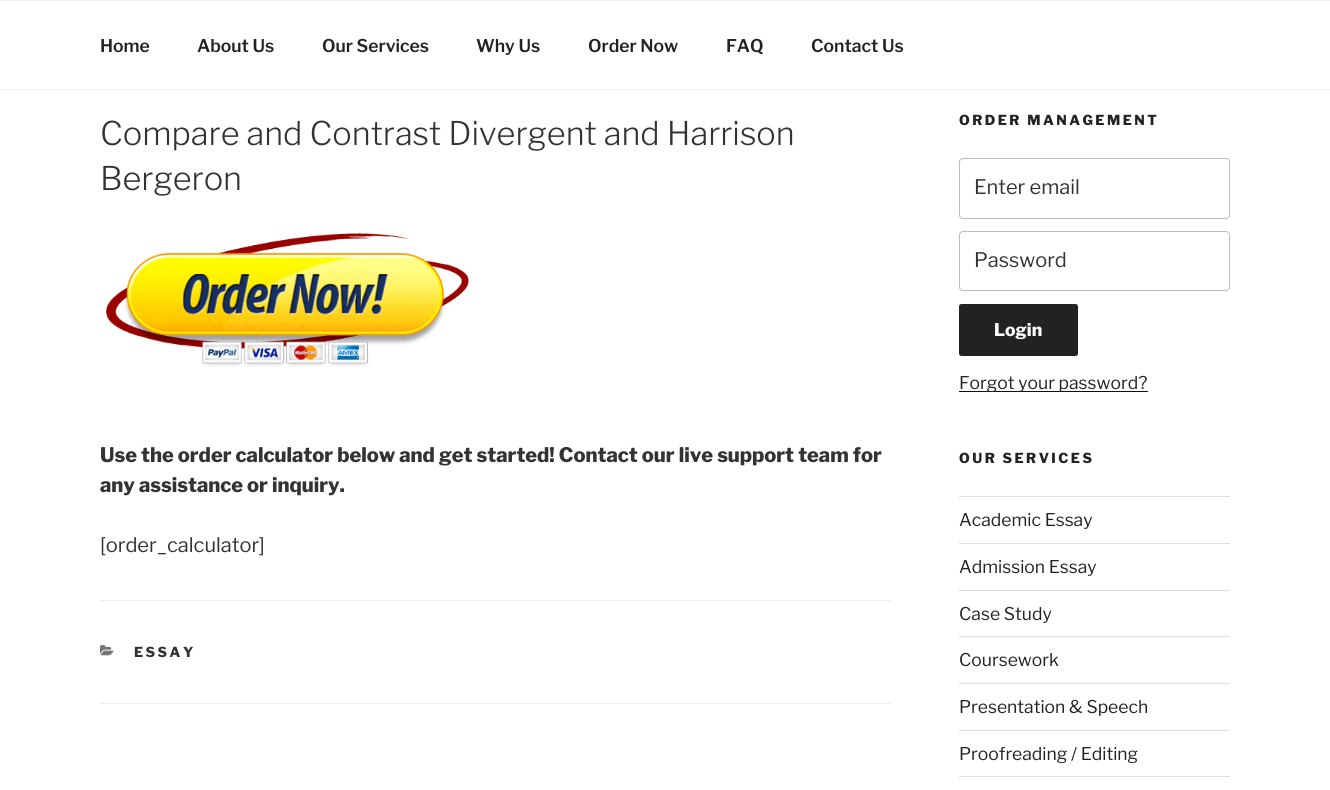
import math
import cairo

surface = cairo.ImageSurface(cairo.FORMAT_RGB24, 1330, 790)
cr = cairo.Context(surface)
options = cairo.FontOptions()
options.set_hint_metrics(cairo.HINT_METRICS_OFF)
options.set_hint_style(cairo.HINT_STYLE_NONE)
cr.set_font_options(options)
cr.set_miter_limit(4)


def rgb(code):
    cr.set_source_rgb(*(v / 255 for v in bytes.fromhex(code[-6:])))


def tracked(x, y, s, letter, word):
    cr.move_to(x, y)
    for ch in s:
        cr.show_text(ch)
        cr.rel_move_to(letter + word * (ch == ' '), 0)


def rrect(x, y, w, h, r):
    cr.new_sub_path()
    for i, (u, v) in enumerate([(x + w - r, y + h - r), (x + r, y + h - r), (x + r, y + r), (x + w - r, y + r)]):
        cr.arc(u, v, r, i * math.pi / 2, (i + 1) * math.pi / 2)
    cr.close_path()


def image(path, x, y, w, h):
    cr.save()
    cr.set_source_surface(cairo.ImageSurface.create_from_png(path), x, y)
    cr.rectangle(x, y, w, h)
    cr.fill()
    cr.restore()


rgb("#ffffff")
cr.paint()
rgb("#eeeeee")
cr.rectangle(0, 0, 1330, 1)
cr.fill()
cr.rectangle(0, 89, 1330, 1)
cr.fill()
image("img/1.png", 106, 233, 363, 134)
cr.rectangle(100, 600, 791, 1)
cr.fill()
cr.rectangle(100, 703, 791, 1)
cr.fill()
image("img/2.png", 100, 645, 14, 11)
rrect(959.5, 158.5, 270, 60, 3.5)
rgb("#bbbbbb")
cr.set_line_width(1)
cr.stroke()
rrect(959.5, 231.5, 270, 59, 3.5)
cr.stroke()
rgb("#222222")
rrect(959, 304, 119, 52, 2.5)
cr.fill()
for x, y, w, h, color in [
    (959, 391, 189, 1, "#0f0f0f"),
    (959, 496, 271, 1, "#dddddd"),
    (959, 543, 271, 1, "#dddddd"),
    (959, 590, 271, 1, "#dddddd"),
    (959, 636, 271, 1, "#dddddd"),
    (959, 683, 271, 1, "#dddddd"),
    (959, 730, 271, 1, "#dddddd"),
    (959, 776, 271, 1, "#dddddd"),
]:
    rgb(color)
    cr.rectangle(x, y, w, h)
    cr.fill()
cr.select_font_face("Libre Franklin SemiBold")
cr.set_font_size(17.5)
rgb("#222222")
for x, y, s in [
    (100, 52, "Home"),
    (197, 52, "About Us"),
    (322, 52, "Our Services"),
    (476, 52, "Why Us"),
    (588, 52, "Order Now"),
    (726, 52, "FAQ"),
    (811, 52, "Contact Us"),
]:
    cr.move_to(x, y)
    cr.show_text(s)
cr.select_font_face("Libre Franklin Light")
cr.set_font_size(32.5)
rgb("#333333")
cr.move_to(100, 145)
cr.show_text("Compare and Contrast Divergent and Harrison")
cr.move_to(100, 190)
cr.show_text("Bergeron")
cr.select_font_face("Libre Franklin ExtraBold")
cr.set_font_size(20)
cr.move_to(100, 462)
cr.show_text("Use the order calculator below and get started! Contact our live support team for")
cr.move_to(100, 492)
cr.show_text("any assistance or inquiry.")
cr.select_font_face("Libre Franklin")
cr.move_to(100, 552)
cr.show_text("[order_calculator]")
cr.select_font_face("Libre Franklin ExtraBold")
cr.set_font_size(13.75)
tracked(134, 657, "ESSAY", 2.5, 0)
rgb("#222222")
tracked(959, 125, "ORDER MANAGEMENT", 2.5, 0)
cr.select_font_face("Libre Franklin")
cr.set_font_size(20)
rgb("#333333")
cr.move_to(974, 194)
cr.show_text("Enter email")
cr.move_to(974, 267)
cr.show_text("Password")
cr.select_font_face("Libre Franklin ExtraBold")
cr.set_font_size(17.5)
rgb("#ffffff")
cr.move_to(994, 336)
cr.show_text("Login")
cr.select_font_face("Libre Franklin")
rgb("#222222")
cr.move_to(959, 389)
cr.show_text("Forgot your password?")
cr.select_font_face("Libre Franklin ExtraBold")
cr.set_font_size(13.75)
tracked(959, 463, "OUR SERVICES", 2.5, 0)
cr.select_font_face("Libre Franklin")
cr.set_font_size(17.5)
for x, y, s in [
    (959, 526, "Academic Essay"),
    (959, 573, "Admission Essay"),
    (959, 620, "Case Study"),
    (959, 666, "Coursework"),
    (959, 713, "Presentation & Speech"),
    (959, 760, "Proofreading / Editing"),
]:
    cr.move_to(x, y)
    cr.show_text(s)
surface.write_to_png("page.png")
